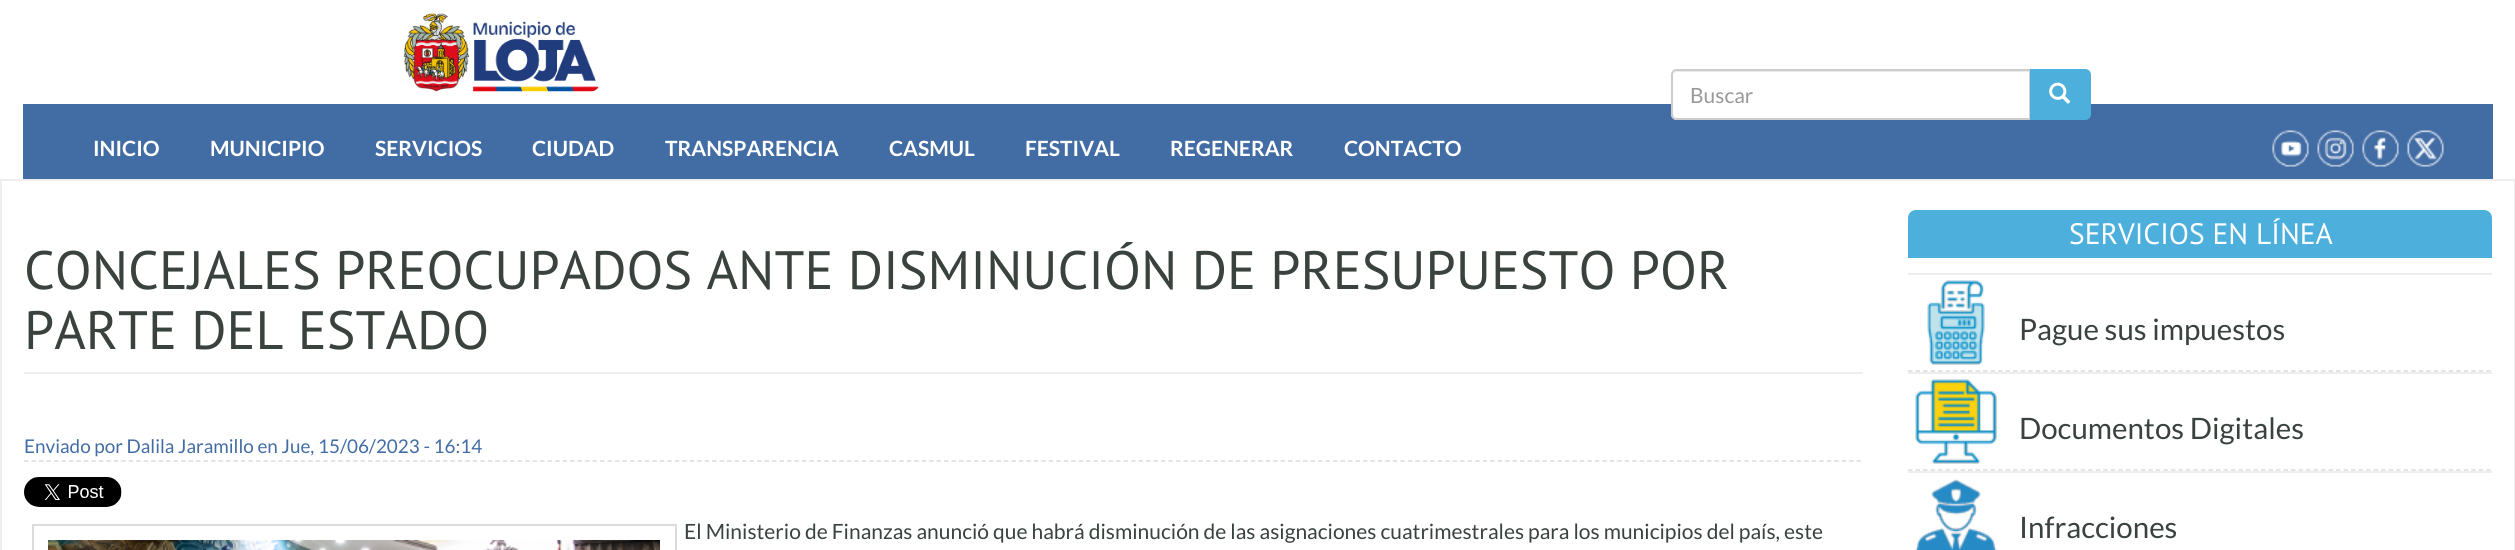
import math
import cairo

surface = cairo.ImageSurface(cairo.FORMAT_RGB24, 2515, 550)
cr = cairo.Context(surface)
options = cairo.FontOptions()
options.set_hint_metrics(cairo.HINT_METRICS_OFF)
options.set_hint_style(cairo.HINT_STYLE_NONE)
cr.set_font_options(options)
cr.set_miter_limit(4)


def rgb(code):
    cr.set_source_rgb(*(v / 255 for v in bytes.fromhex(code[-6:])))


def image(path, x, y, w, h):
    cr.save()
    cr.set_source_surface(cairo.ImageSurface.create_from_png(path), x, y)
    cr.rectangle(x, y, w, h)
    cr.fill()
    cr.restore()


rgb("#ffffff")
cr.paint()
image("img/1.png", 403, 13, 196, 79)
rgb("#426ca4")
cr.rectangle(23, 104, 2470, 75)
cr.fill()
rgb("#ffffff")
cr.new_path()
cr.move_to(1677, 69)
cr.line_to(2031, 69)
cr.line_to(2031, 120)
cr.line_to(1677, 120)
cr.curve_to(1673.5, 120, 1671, 117.5, 1671, 114)
cr.line_to(1671, 75)
cr.curve_to(1671, 71.5, 1673.5, 69, 1677, 69)
cr.close_path()
cr.fill()
rgb("#ececec")
cr.new_path()
cr.move_to(1677, 72)
cr.line_to(2030, 72)
cr.line_to(2030, 71)
cr.line_to(1678, 71)
cr.curve_to(1676, 71, 1675, 72, 1674, 73)
cr.close_path()
cr.fill()
cr.new_path()
cr.move_to(1677, 70)
cr.line_to(2030, 70)
cr.line_to(2030, 119)
cr.line_to(1677, 119)
cr.curve_to(1674, 119, 1672, 117, 1672, 114)
cr.line_to(1672, 75)
cr.curve_to(1672, 72, 1674, 70, 1677, 70)
cr.close_path()
rgb("#cccccc")
cr.stroke()
rgb("#4db0dc")
cr.new_path()
cr.move_to(2031, 70)
cr.line_to(2085, 70)
cr.curve_to(2088, 70, 2090, 72, 2090, 75)
cr.line_to(2090, 114)
cr.curve_to(2090, 117, 2088, 119, 2085, 119)
cr.line_to(2031, 119)
cr.close_path()
cr.fill_preserve()
cr.stroke()
image("img/2.png", 2049, 82, 22, 22)
image("img/3.png", 2272, 130, 37, 37)
image("img/4.png", 2317, 130, 37, 37)
image("img/5.png", 2362, 130, 37, 37)
image("img/6.png", 2407, 130, 37, 37)
cr.rectangle(1, 180, 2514, 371)
rgb("#eeeeee")
cr.stroke()
cr.rectangle(24, 372, 1839, 2)
cr.fill()
cr.new_path()
cr.move_to(24, 461)
cr.line_to(1863, 461)
rgb("#dbdbdb")
cr.set_line_width(1.5)
cr.set_dash([4.5, 2.98])
cr.stroke()
image("img/7.png", 24, 477, 98, 30)
cr.rectangle(33, 525, 643, 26)
cr.set_line_width(2)
cr.set_dash([])
cr.stroke()
image("img/8.png", 48, 540, 612, 10)
rgb("#4db0dc")
cr.new_path()
cr.move_to(1916, 210)
cr.line_to(2484, 210)
cr.curve_to(2488.5, 210, 2492, 213.5, 2492, 218)
cr.line_to(2492, 258)
cr.line_to(1908, 258)
cr.line_to(1908, 218)
cr.curve_to(1908, 213.5, 1911.5, 210, 1916, 210)
cr.close_path()
cr.fill()
cr.new_path()
cr.move_to(1908, 371)
cr.line_to(2491.5, 371)
rgb("#dbdbdb")
cr.set_line_width(1.5)
cr.set_dash([4.5, 3.01])
cr.stroke()
rgb("#eeeeee")
cr.rectangle(1908, 273, 584, 2)
cr.fill()
image("img/9.png", 1927, 280, 58, 85)
cr.new_path()
cr.move_to(1908, 470)
cr.line_to(2491.5, 470)
rgb("#dbdbdb")
cr.stroke()
rgb("#eeeeee")
cr.rectangle(1908, 372, 584, 2)
cr.fill()
image("img/10.png", 1915, 379, 82, 85)
cr.rectangle(1908, 471, 584, 2)
cr.fill()
image("img/11.png", 1915, 479, 82, 71)
cr.select_font_face("Lato")
cr.set_font_size(21)
rgb("#999999")
cr.move_to(1690, 103)
cr.show_text("Buscar")
cr.select_font_face("Lato", cairo.FONT_SLANT_NORMAL, cairo.FONT_WEIGHT_BOLD)
rgb("#ffffff")
for x, y, s in [
    (93, 156, "INICIO"),
    (210, 156, "MUNICIPIO"),
    (375, 156, "SERVICIOS"),
    (532, 156, "CIUDAD"),
    (665, 156, "TRANSPARENCIA"),
    (889, 156, "CASMUL"),
    (1025, 156, "FESTIVAL"),
    (1170, 156, "REGENERAR"),
    (1344, 156, "CONTACTO"),
]:
    cr.move_to(x, y)
    cr.show_text(s)
cr.select_font_face("PT Sans")
cr.set_font_size(54)
rgb("#39423d")
cr.move_to(24, 289)
cr.show_text("CONCEJALES PREOCUPADOS ANTE DISMINUCIÓN DE PRESUPUESTO POR")
cr.move_to(24, 349)
cr.show_text("PARTE DEL ESTADO")
cr.select_font_face("Lato")
cr.set_font_size(18.9)
rgb("#426ca4")
cr.move_to(24, 453)
cr.show_text("Enviado por Dalila Jaramillo en Jue, 15/06/2023 - 16:14")
cr.set_font_size(21)
rgb("#39423d")
cr.move_to(684, 539)
cr.show_text("El Ministerio de Finanzas anunció que habrá disminución de las asignaciones cuatrimestrales para los municipios del país, este")
cr.select_font_face("PT Sans")
cr.set_font_size(29.5)
rgb("#ffffff")
cr.move_to(2069, 244)
cr.show_text("SERVICIOS EN LÍNEA")
cr.select_font_face("Lato")
rgb("#39423d")
for x, y, s in [
    (2019, 340, "Pague sus impuestos"),
    (2019, 439, "Documentos Digitales"),
    (2019, 538, "Infracciones"),
]:
    cr.move_to(x, y)
    cr.show_text(s)
surface.write_to_png("page.png")
